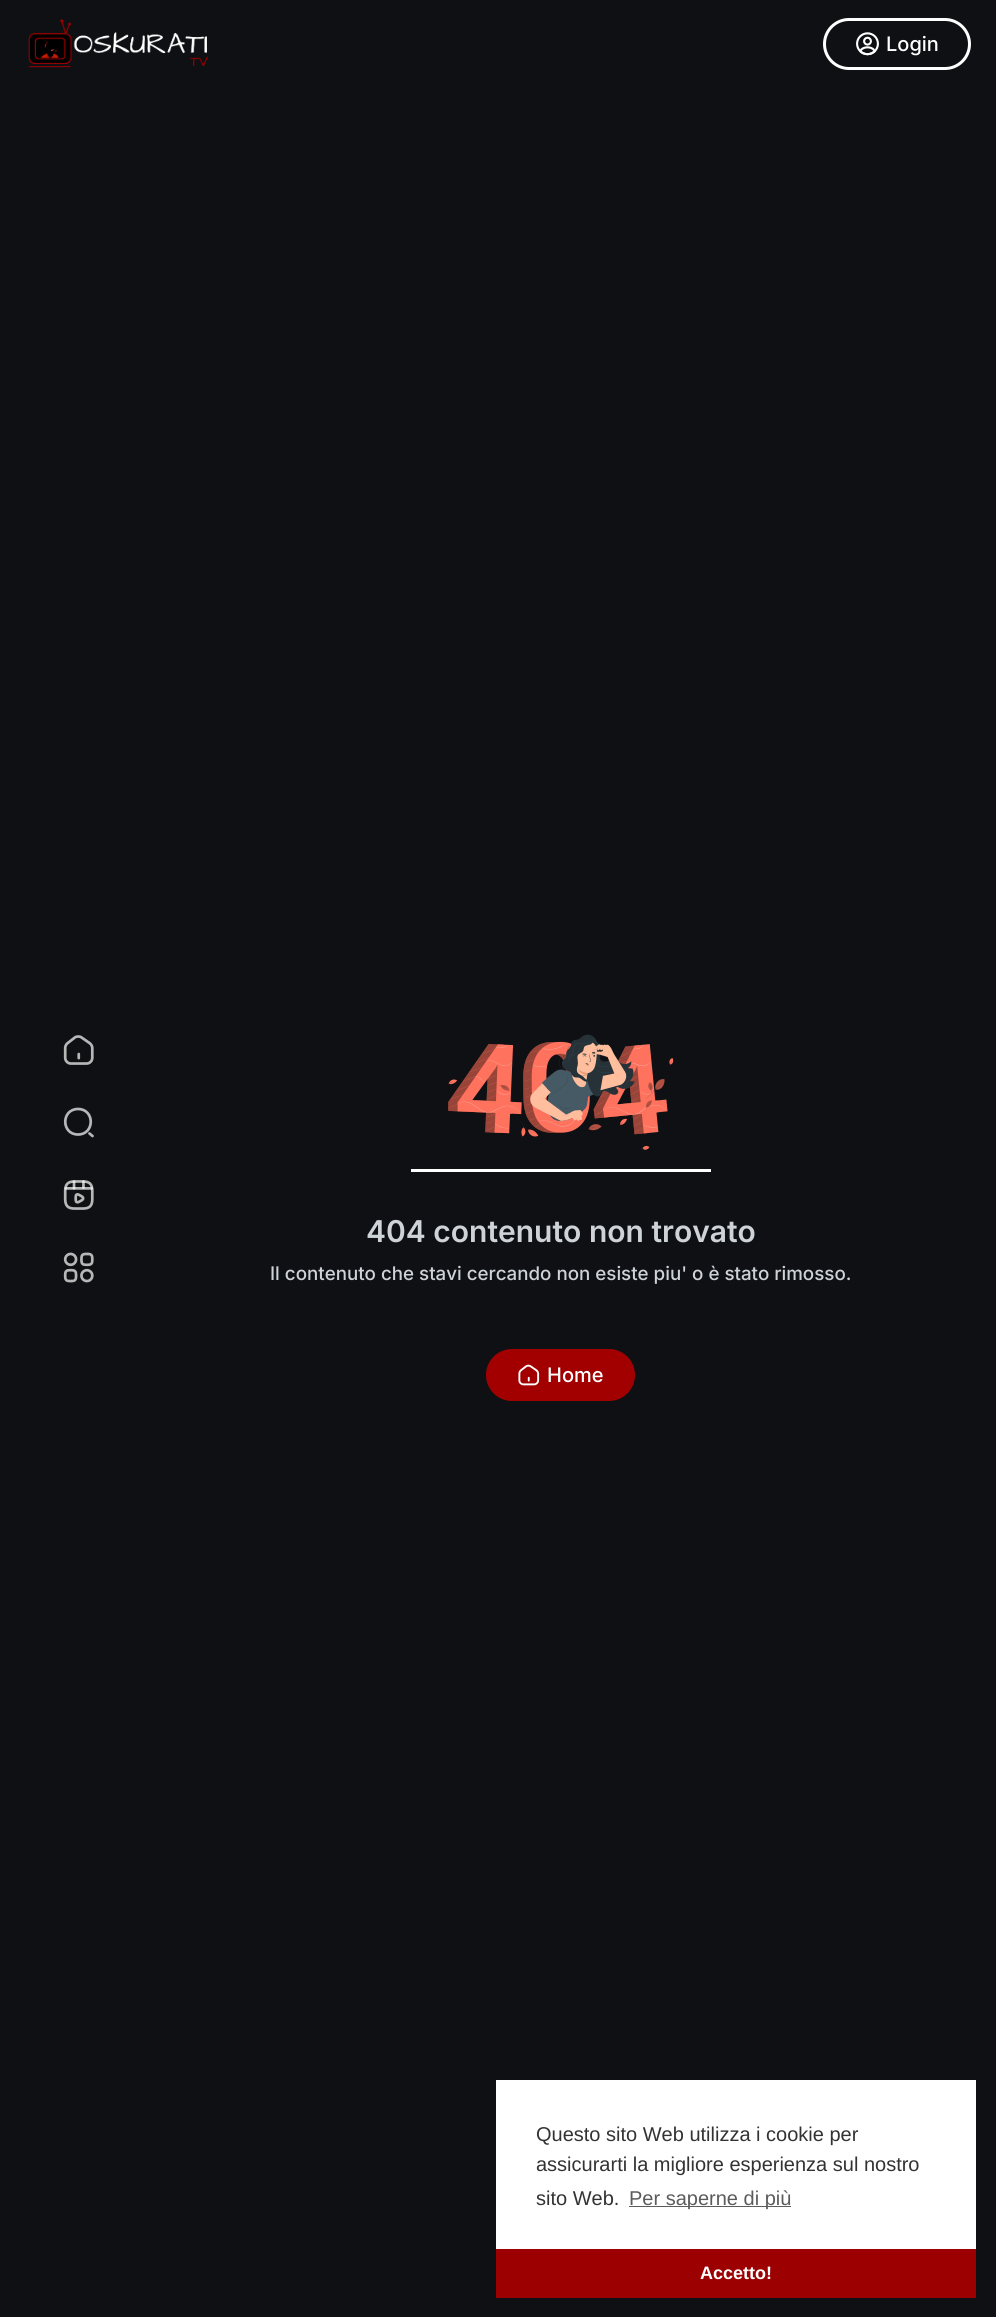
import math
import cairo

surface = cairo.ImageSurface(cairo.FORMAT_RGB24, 996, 2317)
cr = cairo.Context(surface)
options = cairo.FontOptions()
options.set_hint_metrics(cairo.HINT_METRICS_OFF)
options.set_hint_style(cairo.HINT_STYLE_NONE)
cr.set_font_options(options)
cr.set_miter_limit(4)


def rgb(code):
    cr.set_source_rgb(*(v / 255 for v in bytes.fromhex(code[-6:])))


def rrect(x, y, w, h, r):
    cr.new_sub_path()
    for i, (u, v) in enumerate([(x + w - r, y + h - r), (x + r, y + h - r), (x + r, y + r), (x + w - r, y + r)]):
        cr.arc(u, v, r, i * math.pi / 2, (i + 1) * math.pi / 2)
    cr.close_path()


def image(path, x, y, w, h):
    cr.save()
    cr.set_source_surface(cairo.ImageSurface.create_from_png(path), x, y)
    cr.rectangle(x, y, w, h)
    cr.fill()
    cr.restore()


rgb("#0f1014")
cr.paint()
image("img/1.png", 28, 19, 181, 49)
rrect(824.5, 19.5, 145, 49, 24.5)
rgb("#ffffff")
cr.set_line_width(3)
cr.stroke()
image("img/2.png", 856, 32, 23, 24)
image("img/3.png", 63, 1035, 31, 30)
cr.new_path()
cr.move_to(78, 1134.5)
cr.curve_to(95, 1134.5, 95, 1109, 78, 1109)
cr.curve_to(61, 1109, 61, 1134.5, 78, 1134.5)
cr.close_path()
cr.move_to(92.5, 1136)
cr.line_to(89.5, 1133.5)
rgb("#b7b7b9")
cr.set_line_width(2.7)
cr.set_line_cap(cairo.LINE_CAP_ROUND)
cr.set_line_join(cairo.LINE_JOIN_ROUND)
cr.stroke()
image("img/4.png", 63, 1180, 31, 30)
image("img/5.png", 63, 1252, 31, 31)
image("img/6.png", 448, 1034, 226, 116)
rgb("#ffffff")
cr.rectangle(411, 1169, 300, 3)
cr.fill()
rgb("#a20000")
rrect(486, 1349, 149, 52, 26)
cr.fill()
image("img/7.png", 518, 1364, 22, 22)
for x, y, w, h, color in [
    (496, 2080, 480, 169, "#ffffff"),
    (629, 2206, 162, 1, "#5c5c5c"),
    (496, 2249, 480, 49, "#9d0000"),
]:
    rgb(color)
    cr.rectangle(x, y, w, h)
    cr.fill()
cr.select_font_face("Inter Medium")
cr.set_font_size(20)
rgb("#ffffff")
cr.move_to(886, 51)
cr.show_text("Login")
cr.select_font_face("Inter SemiBold")
cr.set_font_size(30)
rgb("#ced3d8")
cr.move_to(366, 1242)
cr.show_text("404 contenuto non trovato")
cr.select_font_face("Inter Medium")
cr.set_font_size(18.75)
cr.move_to(270, 1280)
cr.show_text("Il contenuto che stavi cercando non esiste piu' o è stato rimosso.")
cr.set_font_size(20)
rgb("#ffffff")
cr.move_to(547, 1382)
cr.show_text("Home")
cr.select_font_face("Liberation Sans")
rgb("#333333")
for x, y, s in [
    (536, 2141, "Questo sito Web utilizza i cookie per"),
    (536, 2171, "assicurarti la migliore esperienza sul nostro"),
    (536, 2205, "sito Web."),
]:
    cr.move_to(x, y)
    cr.show_text(s)
rgb("#5c5c5c")
cr.move_to(629, 2205)
cr.show_text("Per saperne di più")
cr.select_font_face("Liberation Sans", cairo.FONT_SLANT_NORMAL, cairo.FONT_WEIGHT_BOLD)
cr.set_font_size(18)
rgb("#ffffff")
cr.move_to(700, 2279)
cr.show_text("Accetto!")
surface.write_to_png("page.png")
